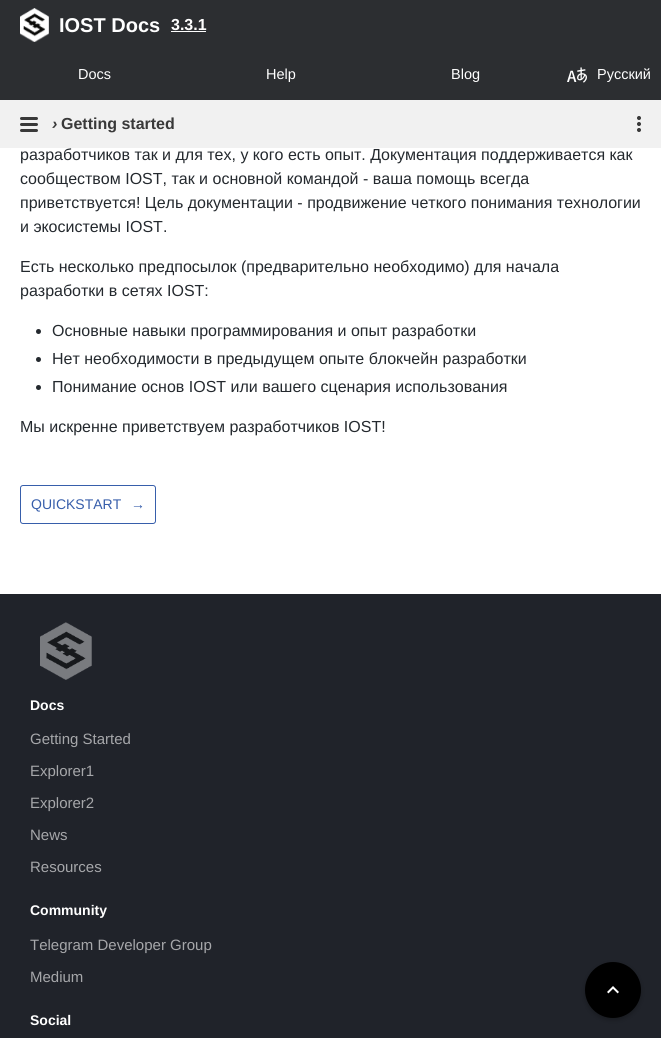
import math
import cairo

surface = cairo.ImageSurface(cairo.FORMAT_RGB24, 661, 1038)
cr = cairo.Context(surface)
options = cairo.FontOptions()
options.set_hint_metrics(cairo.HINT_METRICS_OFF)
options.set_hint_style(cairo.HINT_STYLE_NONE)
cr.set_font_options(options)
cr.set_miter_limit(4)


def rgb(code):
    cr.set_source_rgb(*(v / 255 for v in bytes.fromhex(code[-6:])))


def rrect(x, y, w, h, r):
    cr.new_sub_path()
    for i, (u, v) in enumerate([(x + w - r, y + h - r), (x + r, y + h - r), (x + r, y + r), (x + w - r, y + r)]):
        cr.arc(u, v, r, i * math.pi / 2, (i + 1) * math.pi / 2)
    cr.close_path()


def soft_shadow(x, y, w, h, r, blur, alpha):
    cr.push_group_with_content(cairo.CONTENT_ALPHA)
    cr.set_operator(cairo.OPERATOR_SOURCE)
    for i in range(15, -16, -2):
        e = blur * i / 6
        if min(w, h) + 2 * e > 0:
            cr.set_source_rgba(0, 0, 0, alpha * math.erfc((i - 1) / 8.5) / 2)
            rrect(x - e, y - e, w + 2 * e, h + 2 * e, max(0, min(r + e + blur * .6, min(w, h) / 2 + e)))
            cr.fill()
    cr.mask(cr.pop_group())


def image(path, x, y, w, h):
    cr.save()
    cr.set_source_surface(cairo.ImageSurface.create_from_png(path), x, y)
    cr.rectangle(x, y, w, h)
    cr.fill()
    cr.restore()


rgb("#ffffff")
cr.paint()
rgb("#2c2e31")
cr.rectangle(0, 0, 661, 100)
cr.fill()
image("img/1.png", 20, 8, 29, 34)
rgb("#ffffff")
cr.rectangle(171, 31, 35, 1)
cr.fill()
image("img/2.png", 567, 67, 20, 16)
rgb("#f1f1f1")
cr.rectangle(0, 100, 661, 48)
cr.fill()
rgb("#393939")
rrect(20, 117, 18, 3, 1.5)
cr.fill()
rrect(20, 123, 18, 3, 1.5)
cr.fill()
rrect(20, 129, 18, 3, 1.5)
cr.fill()
cr.arc(639, 124, 1.5, 0, 2 * math.pi)
cr.fill_preserve()
cr.set_line_width(1)
cr.stroke()
cr.arc(639, 118, 1.5, 0, 2 * math.pi)
cr.fill_preserve()
cr.stroke()
cr.arc(639, 130, 1.5, 0, 2 * math.pi)
cr.fill_preserve()
cr.stroke()
rgb("#24292e")
cr.arc(38.5, 331.5, 2.5, 0, 2 * math.pi)
cr.fill()
cr.arc(38.5, 359.5, 2.5, 0, 2 * math.pi)
cr.fill()
cr.arc(38.5, 387.5, 2.5, 0, 2 * math.pi)
cr.fill()
rrect(20.5, 485.5, 135, 38, 2.5)
rgb("#375eab")
cr.stroke()
rgb("#20232a")
cr.rectangle(0, 594, 661, 444)
cr.fill()
image("img/3.png", 40, 622, 52, 58)
rgb("#000000")
soft_shadow(585, 964, 56, 56, 28, 2.5, 0.26)
rgb("#000000")
cr.arc(613, 990, 28, 0, 2 * math.pi)
cr.fill()
image("img/4.png", 607, 986, 12, 8)
cr.select_font_face("Liberation Sans", cairo.FONT_SLANT_NORMAL, cairo.FONT_WEIGHT_BOLD)
cr.set_font_size(20)
rgb("#ffffff")
cr.move_to(59, 32)
cr.show_text("IOST Docs")
cr.set_font_size(16)
cr.move_to(171, 30)
cr.show_text("3.3.1")
cr.select_font_face("Liberation Sans")
cr.set_font_size(14.5)
for x, y, s in [
    (78, 79, "Docs"),
    (266, 79, "Help"),
    (451, 79, "Blog"),
    (597, 79, "Русский"),
]:
    cr.move_to(x, y)
    cr.show_text(s)
cr.select_font_face("Liberation Sans", cairo.FONT_SLANT_ITALIC, cairo.FONT_WEIGHT_BOLD)
cr.set_font_size(16)
rgb("#393939")
cr.move_to(52, 129)
cr.show_text("›")
cr.select_font_face("Liberation Sans", cairo.FONT_SLANT_NORMAL, cairo.FONT_WEIGHT_BOLD)
cr.move_to(61, 129)
cr.show_text("Getting started")
cr.select_font_face("Liberation Sans")
rgb("#24292e")
for x, y, s in [
    (20, 160, "разработчиков так и для тех, у кого есть опыт. Документация поддерживается как"),
    (20, 184, "сообществом IOST, так и основной командой - ваша помощь всегда"),
    (20, 208, "приветствуется! Цель документации - продвижение четкого понимания технологии"),
    (20, 232, "и экосистемы IOST."),
    (20, 272, "Есть несколько предпосылок (предварительно необходимо) для начала"),
    (20, 296, "разработки в сетях IOST:"),
    (52, 336, "Основные навыки программирования и опыт разработки"),
    (52, 364, "Нет необходимости в предыдущем опыте блокчейн разработки"),
    (52, 392, "Понимание основ IOST или вашего cценария использования"),
    (20, 432, "Мы искренне приветствуем разработчиков IOST!"),
]:
    cr.move_to(x, y)
    cr.show_text(s)
cr.set_font_size(14)
rgb("#375eab")
cr.move_to(31, 509)
cr.show_text("QUICKSTART")
cr.move_to(131, 509)
cr.show_text("→")
cr.select_font_face("Liberation Sans", cairo.FONT_SLANT_NORMAL, cairo.FONT_WEIGHT_BOLD)
rgb("#ffffff")
cr.move_to(30, 710)
cr.show_text("Docs")
cr.select_font_face("Liberation Sans")
cr.set_font_size(15)
rgb("#a6a7aa")
for x, y, s in [
    (30, 744, "Getting Started"),
    (30, 776, "Explorer1"),
    (30, 808, "Explorer2"),
    (30, 840, "News"),
    (30, 872, "Resources"),
]:
    cr.move_to(x, y)
    cr.show_text(s)
cr.select_font_face("Liberation Sans", cairo.FONT_SLANT_NORMAL, cairo.FONT_WEIGHT_BOLD)
cr.set_font_size(14)
rgb("#ffffff")
cr.move_to(30, 915)
cr.show_text("Community")
cr.select_font_face("Liberation Sans")
cr.set_font_size(15)
rgb("#a6a7aa")
cr.move_to(30, 950)
cr.show_text("Telegram Developer Group")
cr.move_to(30, 982)
cr.show_text("Medium")
cr.select_font_face("Liberation Sans", cairo.FONT_SLANT_NORMAL, cairo.FONT_WEIGHT_BOLD)
cr.set_font_size(14)
rgb("#ffffff")
cr.move_to(30, 1025)
cr.show_text("Social")
surface.write_to_png("page.png")
